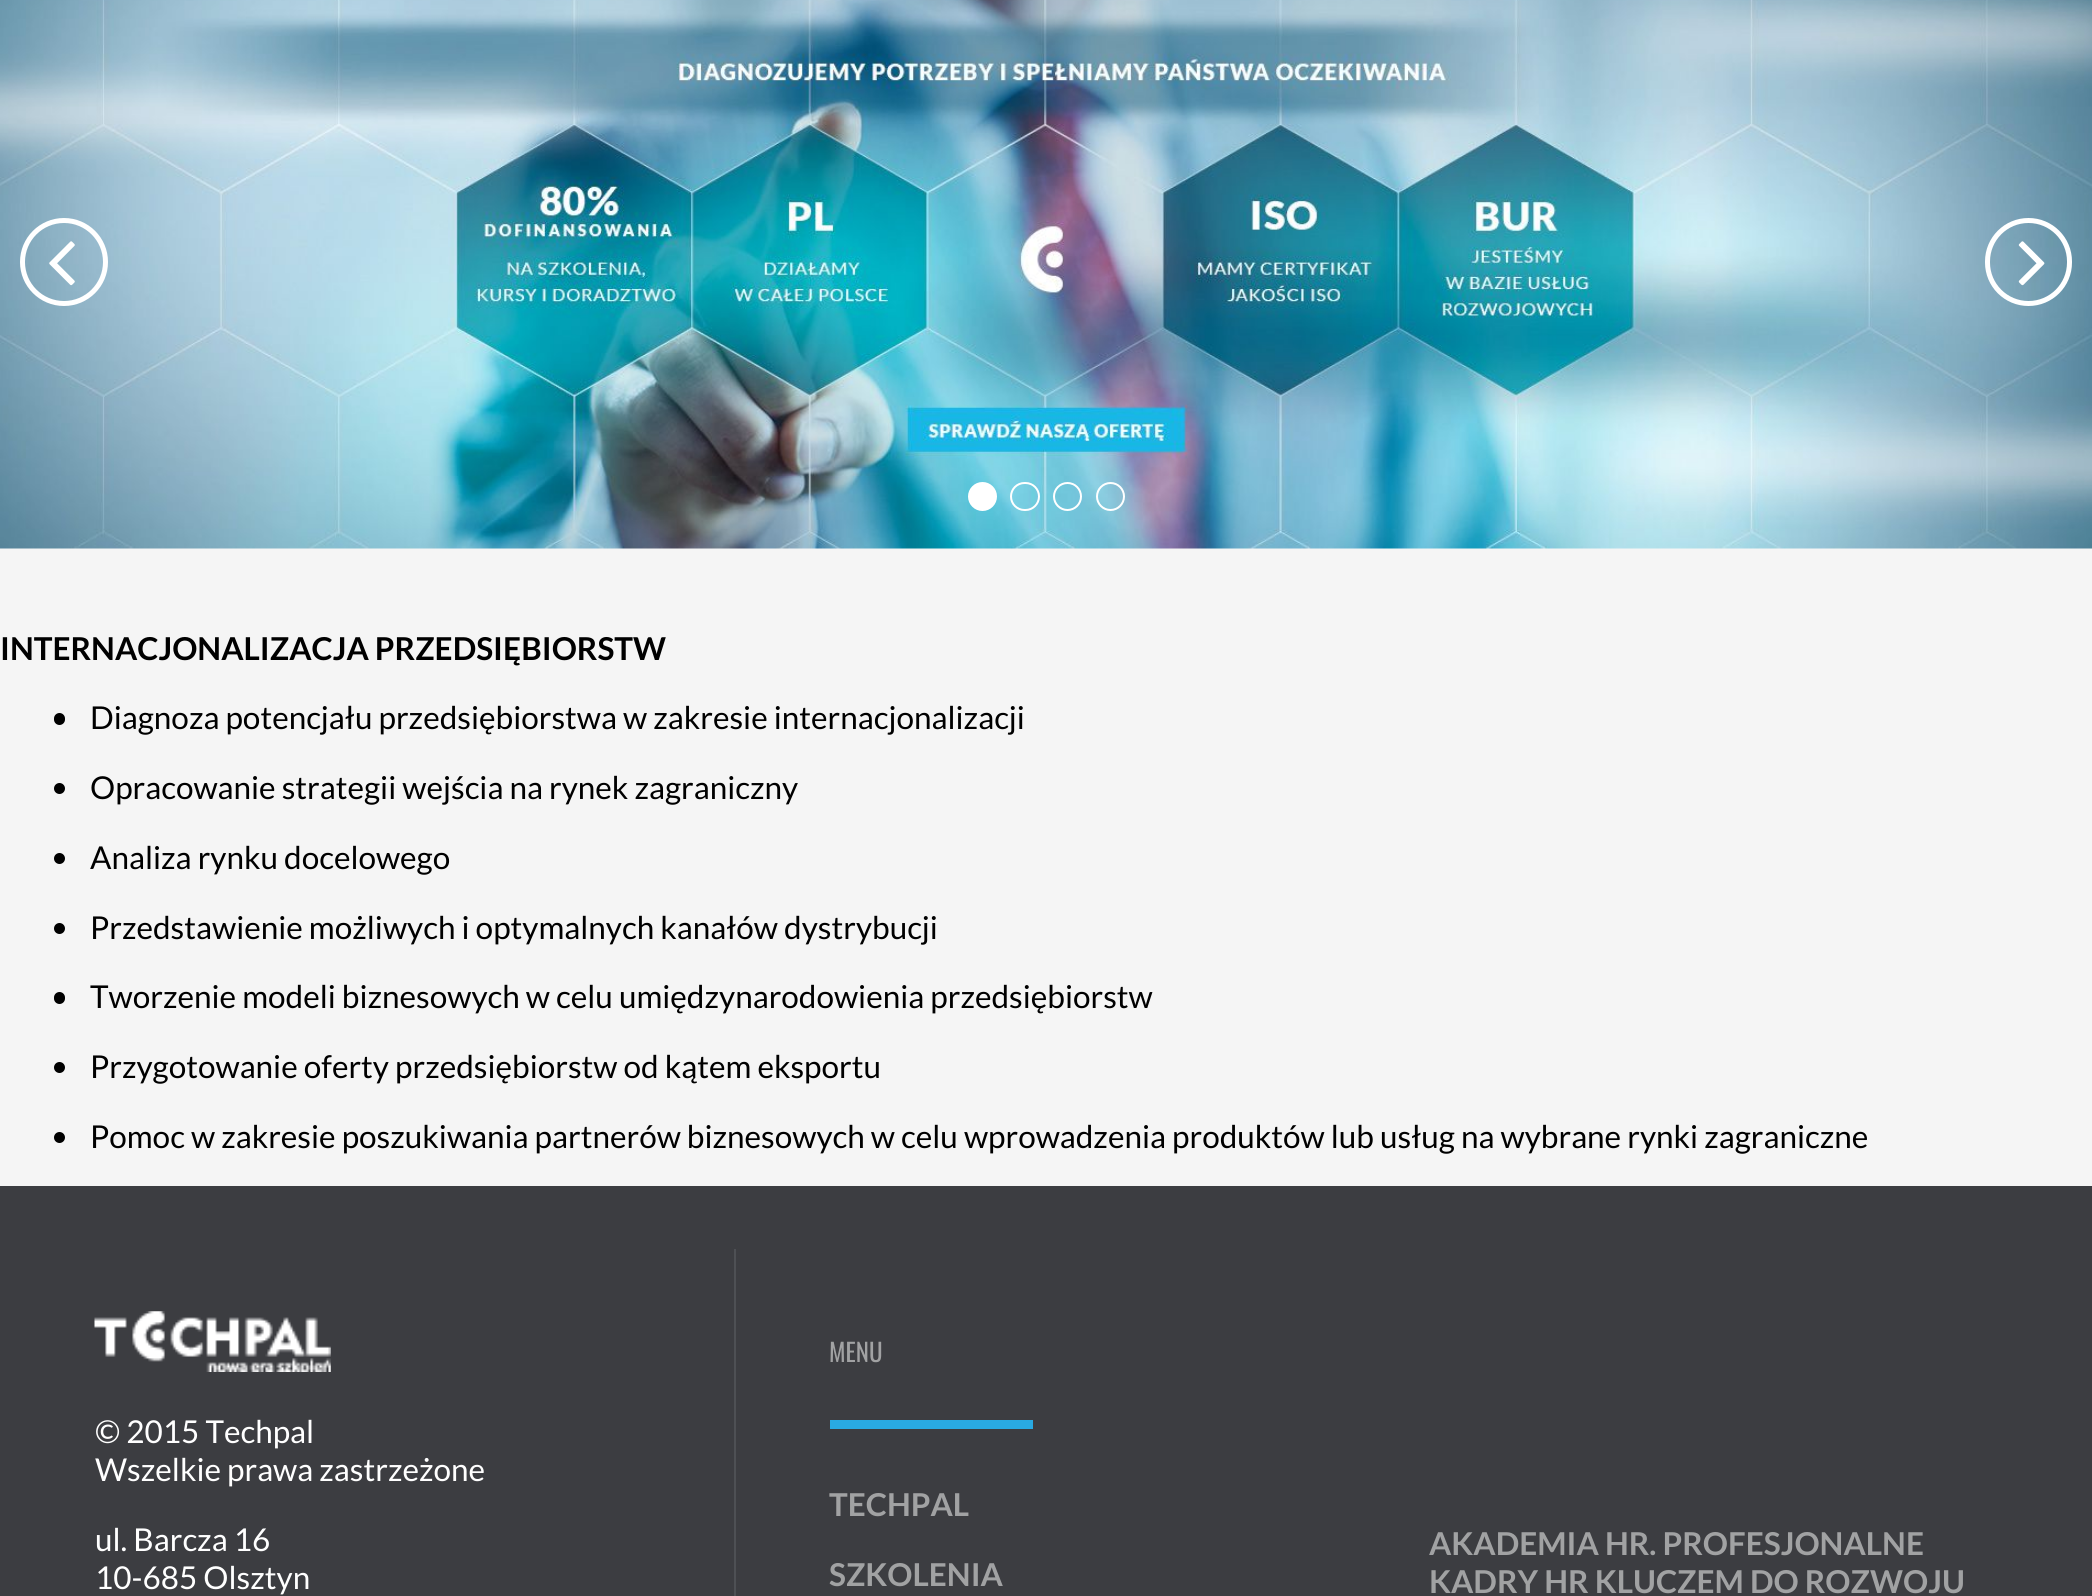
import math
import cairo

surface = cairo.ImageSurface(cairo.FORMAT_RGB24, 2092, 1596)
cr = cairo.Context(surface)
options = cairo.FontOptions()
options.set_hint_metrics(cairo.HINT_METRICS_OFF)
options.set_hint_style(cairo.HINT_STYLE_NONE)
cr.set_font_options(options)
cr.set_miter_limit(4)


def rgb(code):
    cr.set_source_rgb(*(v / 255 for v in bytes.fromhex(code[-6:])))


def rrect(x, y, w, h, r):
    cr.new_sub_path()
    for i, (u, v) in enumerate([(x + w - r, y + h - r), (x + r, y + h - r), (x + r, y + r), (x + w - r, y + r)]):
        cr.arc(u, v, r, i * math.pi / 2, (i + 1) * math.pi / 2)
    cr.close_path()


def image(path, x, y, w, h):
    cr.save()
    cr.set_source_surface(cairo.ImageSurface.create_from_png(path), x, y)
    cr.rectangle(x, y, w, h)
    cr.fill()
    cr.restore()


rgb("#f5f5f5")
cr.paint()
image("img/1.png", 0, 0, 2092, 549)
cr.arc(64, 262, 41.5, 0, 2 * math.pi)
rgb("#ffffff")
cr.set_line_width(5)
cr.stroke()
image("img/2.png", 49, 241, 26, 45)
rrect(1987.5, 220.5, 82, 83, 41)
cr.stroke()
image("img/3.png", 2018, 241, 27, 45)
cr.arc(982.5, 496.5, 13.5, 0, 2 * math.pi)
cr.fill_preserve()
cr.set_line_width(2)
cr.stroke()
rrect(1011, 483, 28, 27, 13.5)
cr.stroke()
cr.arc(1067.5, 496.5, 13.5, 0, 2 * math.pi)
cr.stroke()
cr.arc(1110.5, 496.5, 13.5, 0, 2 * math.pi)
cr.stroke()
rgb("#000000")
rrect(54, 713, 11, 12, 5.5)
cr.fill()
cr.arc(59.5, 788.5, 5.5, 0, 2 * math.pi)
cr.fill()
cr.arc(59.5, 858.5, 5.5, 0, 2 * math.pi)
cr.fill()
cr.arc(59.5, 928.5, 5.5, 0, 2 * math.pi)
cr.fill()
rrect(54, 992, 11, 12, 5.5)
cr.fill()
cr.arc(59.5, 1067.5, 5.5, 0, 2 * math.pi)
cr.fill()
cr.arc(59.5, 1137.5, 5.5, 0, 2 * math.pi)
cr.fill()
rgb("#3c3d41")
cr.rectangle(0, 1186, 2092, 410)
cr.fill()
image("img/4.png", 94, 1311, 237, 61)
rgb("#4e5054")
cr.rectangle(734, 1249, 2, 347)
cr.fill()
rgb("#29aae2")
cr.rectangle(830, 1420, 203, 9)
cr.fill()
cr.select_font_face("Lato", cairo.FONT_SLANT_NORMAL, cairo.FONT_WEIGHT_BOLD)
cr.set_font_size(31.5)
rgb("#000000")
cr.move_to(0, 660)
cr.show_text("INTERNACJONALIZACJA PRZEDSIĘBIORSTW")
cr.select_font_face("Lato")
for x, y, s in [
    (90, 729, "Diagnoza potencjału przedsiębiorstwa w zakresie internacjonalizacji"),
    (90, 799, "Opracowanie strategii wejścia na rynek zagraniczny"),
    (90, 869, "Analiza rynku docelowego"),
    (90, 939, "Przedstawienie możliwych i optymalnych kanałów dystrybucji"),
    (90, 1008, "Tworzenie modeli biznesowych w celu umiędzynarodowienia przedsiębiorstw"),
    (90, 1078, "Przygotowanie oferty przedsiębiorstw od kątem eksportu"),
    (90, 1148, "Pomoc w zakresie poszukiwania partnerów biznesowych w celu wprowadzenia produktów lub usług na wybrane rynki zagraniczne"),
]:
    cr.move_to(x, y)
    cr.show_text(s)
rgb("#ffffff")
for x, y, s in [
    (95, 1443, "© 2015 Techpal"),
    (95, 1481, "Wszelkie prawa zastrzeżone"),
    (95, 1551, "ul. Barcza 16"),
    (95, 1589, "10-685 Olsztyn"),
]:
    cr.move_to(x, y)
    cr.show_text(s)
cr.select_font_face("Oswald")
cr.set_font_size(25)
rgb("#a1a2a3")
cr.move_to(829, 1362)
cr.show_text("MENU")
cr.select_font_face("Lato", cairo.FONT_SLANT_NORMAL, cairo.FONT_WEIGHT_BOLD)
cr.set_font_size(31.5)
for x, y, s in [
    (829, 1516, "TECHPAL"),
    (829, 1586, "SZKOLENIA"),
    (1429, 1555, "AKADEMIA HR. PROFESJONALNE"),
    (1429, 1593, "KADRY HR KLUCZEM DO ROZWOJU"),
]:
    cr.move_to(x, y)
    cr.show_text(s)
surface.write_to_png("page.png")
